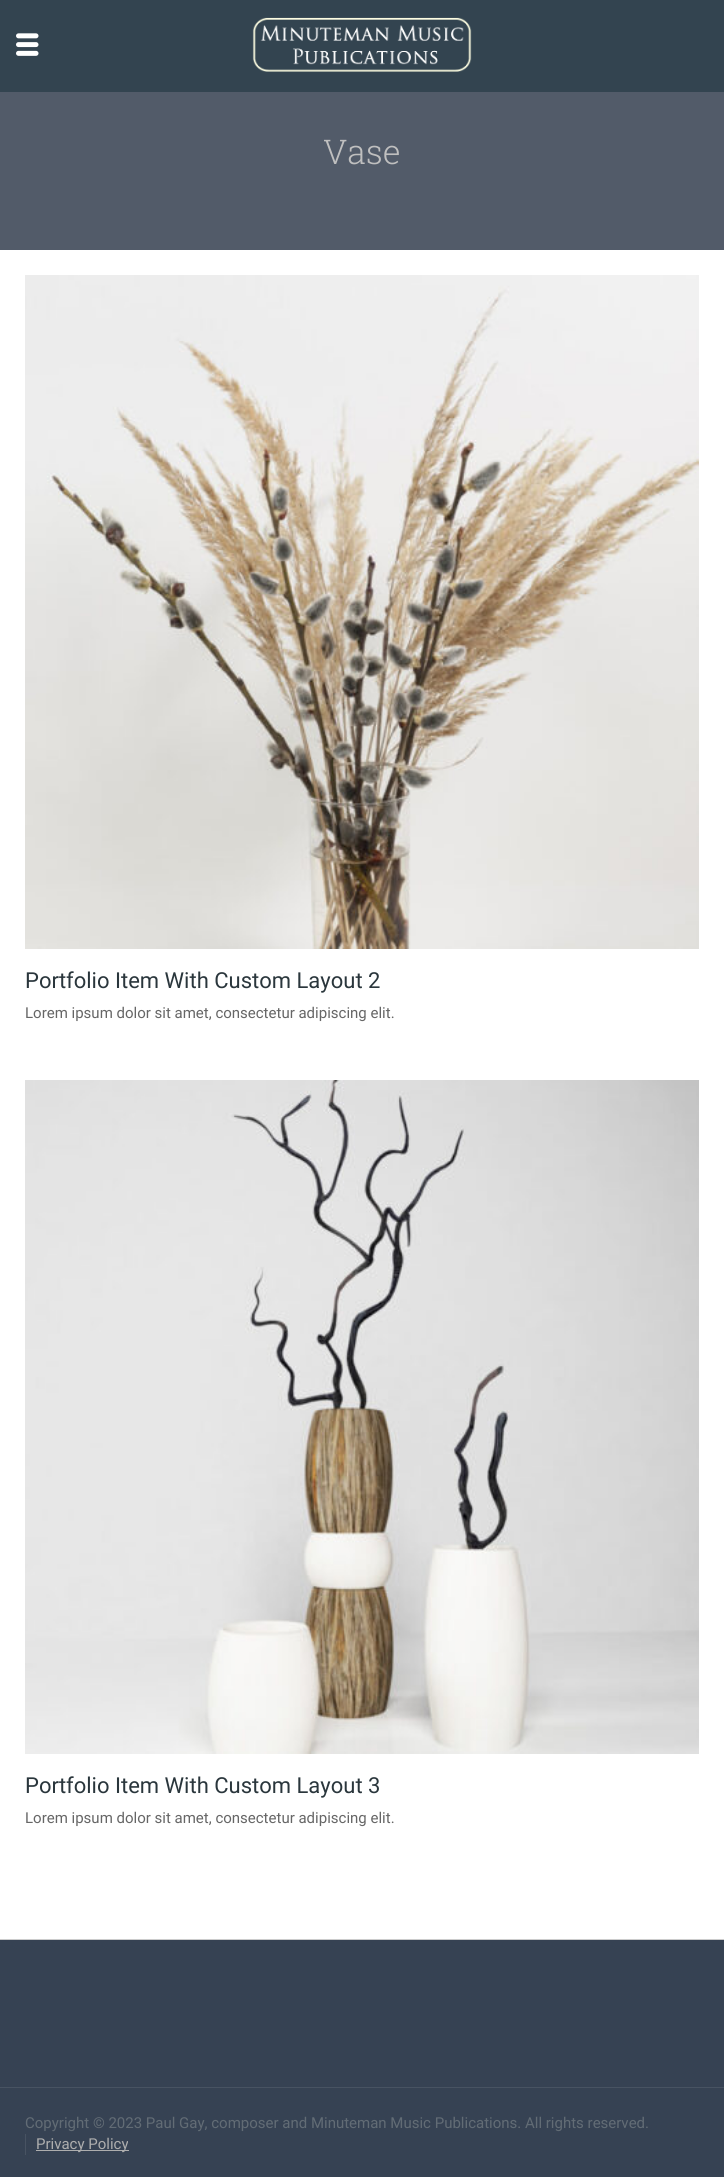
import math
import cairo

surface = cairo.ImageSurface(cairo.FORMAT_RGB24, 724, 2177)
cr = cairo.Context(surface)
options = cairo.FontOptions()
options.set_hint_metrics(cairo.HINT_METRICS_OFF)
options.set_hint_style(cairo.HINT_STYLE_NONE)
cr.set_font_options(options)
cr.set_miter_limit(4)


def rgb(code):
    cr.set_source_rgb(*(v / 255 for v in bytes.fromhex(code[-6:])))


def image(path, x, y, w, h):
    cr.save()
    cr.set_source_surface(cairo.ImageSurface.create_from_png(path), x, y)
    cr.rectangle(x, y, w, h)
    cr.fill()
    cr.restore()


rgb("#cccccc")
cr.paint()
rgb("#334450")
cr.rectangle(0, 0, 724, 92)
cr.fill()
image("img/1.png", 16, 33, 23, 23)
image("img/2.png", 252, 17, 220, 55)
rgb("#525b69")
cr.rectangle(0, 92, 724, 158)
cr.fill()
rgb("#ffffff")
cr.rectangle(0, 250, 724, 1689)
cr.fill()
image("img/3.png", 25, 275, 674, 674)
image("img/4.png", 25, 1080, 674, 674)
for x, y, w, h, color in [
    (0, 1940, 724, 147, "#364253"),
    (0, 2088, 724, 89, "#364253"),
    (0, 2087, 724, 1, "#485362"),
    (25, 2134, 1, 21, "#485362"),
    (36, 2150, 93, 1, "#aeaeae"),
]:
    rgb(color)
    cr.rectangle(x, y, w, h)
    cr.fill()
cr.select_font_face("Roboto Slab Light")
cr.set_font_size(34)
rgb("#bfbfbf")
cr.move_to(323, 164)
cr.show_text("Vase")
cr.select_font_face("Roboto")
cr.set_font_size(22)
rgb("#2a363c")
cr.move_to(25, 988)
cr.show_text("Portfolio Item With Custom Layout 2")
cr.set_font_size(15)
rgb("#666666")
cr.move_to(25, 1018)
cr.show_text("Lorem ipsum dolor sit amet, consectetur adipiscing elit.")
cr.set_font_size(22)
rgb("#2a363c")
cr.move_to(25, 1793)
cr.show_text("Portfolio Item With Custom Layout 3")
cr.set_font_size(15)
rgb("#666666")
cr.move_to(25, 1823)
cr.show_text("Lorem ipsum dolor sit amet, consectetur adipiscing elit.")
rgb("#626c75")
cr.move_to(25, 2128)
cr.show_text("Copyright © 2023 Paul Gay, composer and Minuteman Music Publications. All rights reserved.")
rgb("#aeaeae")
cr.move_to(36, 2149)
cr.show_text("Privacy Policy")
surface.write_to_png("page.png")
